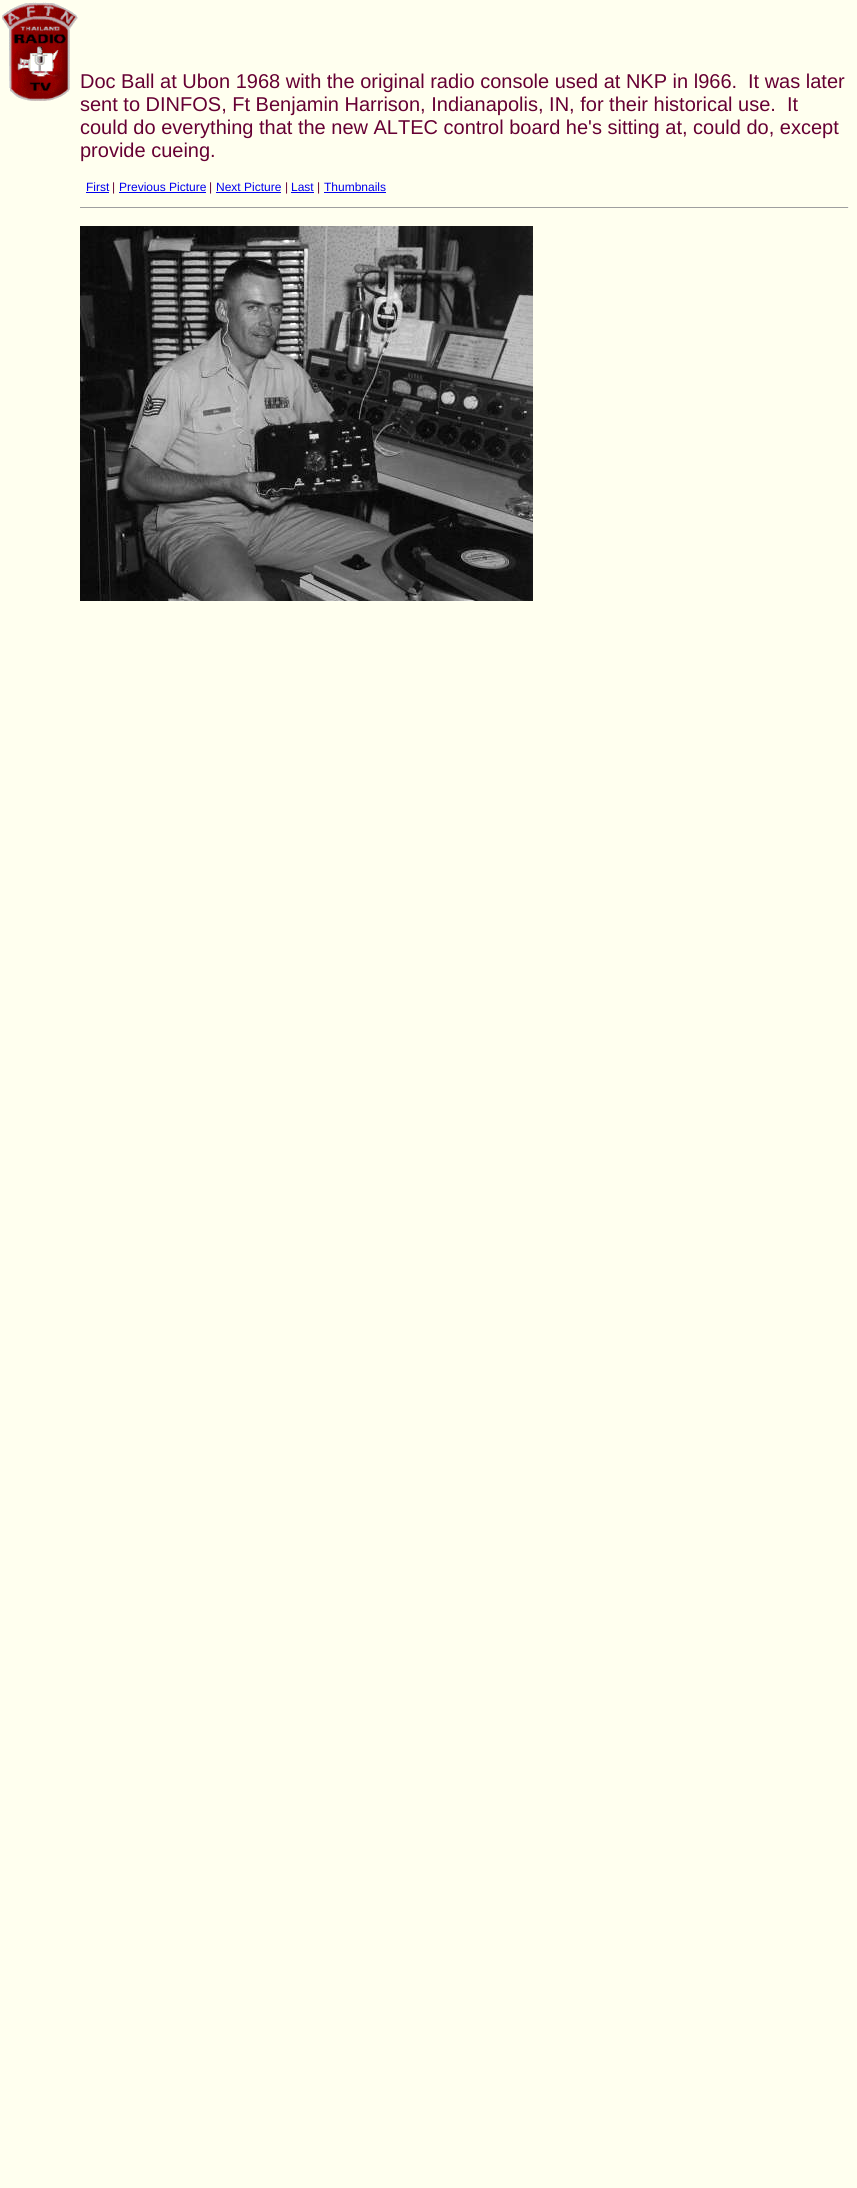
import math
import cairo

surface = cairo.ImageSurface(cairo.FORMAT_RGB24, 857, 2188)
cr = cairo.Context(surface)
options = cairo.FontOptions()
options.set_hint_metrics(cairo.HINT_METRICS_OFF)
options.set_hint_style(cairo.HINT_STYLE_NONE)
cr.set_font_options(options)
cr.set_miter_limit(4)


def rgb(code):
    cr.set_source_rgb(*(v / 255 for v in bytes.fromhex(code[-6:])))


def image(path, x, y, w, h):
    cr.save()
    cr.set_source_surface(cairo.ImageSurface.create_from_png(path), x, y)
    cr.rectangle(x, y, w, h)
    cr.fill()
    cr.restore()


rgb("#ffffef")
cr.paint()
image("img/1.png", 2, 2, 76, 99)
for x, y, w, h, color in [
    (86, 192, 23, 1, "#0000ee"),
    (119, 192, 87, 1, "#0000ee"),
    (216, 192, 65, 1, "#0000ee"),
    (291, 192, 23, 1, "#0000ee"),
    (324, 192, 62, 1, "#0000ee"),
    (80, 207, 769, 1, "#9f9f9f"),
    (848, 207, 1, 1, "#eeeeee"),
]:
    rgb(color)
    cr.rectangle(x, y, w, h)
    cr.fill()
image("img/2.png", 80, 226, 453, 375)
cr.select_font_face("Liberation Sans")
cr.set_font_size(20)
rgb("#660033")
for x, y, s in [
    (80, 88, "Doc Ball at Ubon 1968 with the original radio console used at NKP in l966."),
    (748, 88, "It was later"),
    (80, 111, "sent to DINFOS, Ft Benjamin Harrison, Indianapolis, IN, for their historical use.  It"),
    (80, 134, "could do everything that the new ALTEC control board he's sitting at, could do, except"),
    (80, 157, "provide cueing."),
]:
    cr.move_to(x, y)
    cr.show_text(s)
cr.set_font_size(12)
rgb("#0000ee")
cr.move_to(86, 191)
cr.show_text("First")
rgb("#660033")
cr.move_to(112, 191)
cr.show_text("|")
rgb("#0000ee")
cr.move_to(119, 191)
cr.show_text("Previous Picture")
rgb("#660033")
cr.move_to(209, 191)
cr.show_text("|")
rgb("#0000ee")
cr.move_to(216, 191)
cr.show_text("Next Picture")
rgb("#660033")
cr.move_to(285, 191)
cr.show_text("|")
rgb("#0000ee")
cr.move_to(291, 191)
cr.show_text("Last")
rgb("#660033")
cr.move_to(317, 191)
cr.show_text("|")
rgb("#0000ee")
cr.move_to(324, 191)
cr.show_text("Thumbnails")
surface.write_to_png("page.png")
